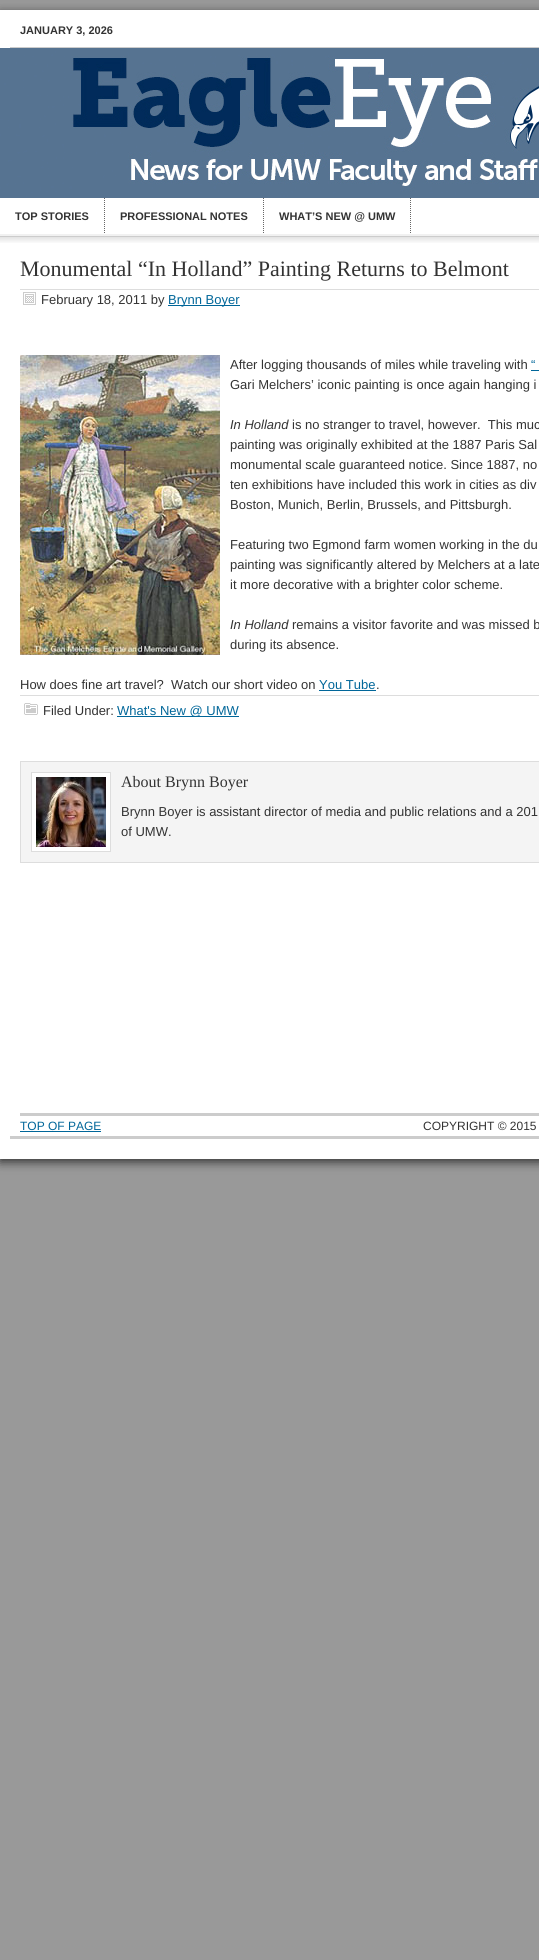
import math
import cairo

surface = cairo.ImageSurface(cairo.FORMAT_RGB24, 539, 1960)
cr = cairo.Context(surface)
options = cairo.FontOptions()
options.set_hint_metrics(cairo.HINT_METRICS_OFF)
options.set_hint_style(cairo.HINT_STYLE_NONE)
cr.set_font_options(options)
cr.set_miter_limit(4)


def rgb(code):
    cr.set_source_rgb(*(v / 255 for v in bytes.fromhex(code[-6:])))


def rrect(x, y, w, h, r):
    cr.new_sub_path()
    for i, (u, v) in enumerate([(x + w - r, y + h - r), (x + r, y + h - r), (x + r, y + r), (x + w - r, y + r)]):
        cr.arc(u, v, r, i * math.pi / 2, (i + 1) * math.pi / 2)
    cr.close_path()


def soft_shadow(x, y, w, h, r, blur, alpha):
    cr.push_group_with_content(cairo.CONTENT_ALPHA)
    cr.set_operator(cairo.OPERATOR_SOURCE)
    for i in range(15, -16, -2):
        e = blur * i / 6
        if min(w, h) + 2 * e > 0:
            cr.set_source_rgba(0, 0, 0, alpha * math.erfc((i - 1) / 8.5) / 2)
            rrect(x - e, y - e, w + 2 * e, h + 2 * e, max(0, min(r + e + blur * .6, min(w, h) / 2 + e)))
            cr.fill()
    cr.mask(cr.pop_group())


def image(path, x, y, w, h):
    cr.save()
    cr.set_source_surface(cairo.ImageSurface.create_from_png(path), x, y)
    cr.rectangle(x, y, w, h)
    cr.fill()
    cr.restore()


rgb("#999999")
cr.paint()
rgb("#333333")
soft_shadow(0, 13, 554, 1149, 0, 5, 1)
rgb("#ffffff")
cr.rectangle(0, 10, 539, 1149)
cr.fill()
rgb("#cccccc")
cr.rectangle(10, 47, 529, 1)
cr.fill()
image("img/1.png", 0, 48, 539, 150)
cr.new_path()
cr.move_to(104.5, 198)
cr.line_to(104.5, 234)
rgb("#666666")
cr.set_line_width(1)
cr.set_dash([1, 1])
cr.stroke()
cr.new_path()
cr.move_to(263.5, 198)
cr.line_to(263.5, 234)
cr.stroke()
cr.new_path()
cr.move_to(410.5, 198)
cr.line_to(410.5, 234)
cr.stroke()
image("img/2.png", 0, 234, 539, 9)
rgb("#dddddd")
cr.rectangle(20, 289, 519, 1)
cr.fill()
image("img/3.png", 23, 292, 13, 13)
rgb("#006699")
cr.rectangle(168, 305, 72, 1)
cr.fill()
image("img/4.png", 20, 355, 200, 300)
for x, y, w, h, color in [
    (531, 370, 8, 1, "#006699"),
    (319, 690, 57, 1, "#006699"),
    (20, 695, 519, 1, "#dddddd"),
]:
    rgb(color)
    cr.rectangle(x, y, w, h)
    cr.fill()
image("img/5.png", 24, 703, 14, 12)
rgb("#006699")
cr.rectangle(117, 716, 122, 1)
cr.fill()
rgb("#f4f4f4")
cr.rectangle(20.5, 761.5, 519, 101)
cr.fill_preserve()
rgb("#dddddd")
cr.set_dash([])
cr.stroke()
rgb("#ffffff")
cr.rectangle(31.5, 772.5, 79, 79)
cr.fill_preserve()
rgb("#dddddd")
cr.stroke()
image("img/6.png", 36, 777, 70, 70)
for x, y, w, h, color in [
    (20, 1113, 519, 3, "#cccccc"),
    (20, 1131, 81, 1, "#006699"),
    (10, 1136, 529, 3, "#cccccc"),
]:
    rgb(color)
    cr.rectangle(x, y, w, h)
    cr.fill()
cr.select_font_face("Liberation Sans", cairo.FONT_SLANT_NORMAL, cairo.FONT_WEIGHT_BOLD)
cr.set_font_size(11)
rgb("#333333")
for x, y, s in [
    (20, 34, "JANUARY 3, 2026"),
    (15, 220, "TOP STORIES"),
    (120, 220, "PROFESSIONAL NOTES"),
    (279, 220, "WHAT’S NEW @ UMW"),
]:
    cr.move_to(x, y)
    cr.show_text(s)
cr.select_font_face("Liberation Serif")
cr.set_font_size(22)
cr.move_to(20, 276)
cr.show_text("Monumental “In Holland” Painting Returns to Belmont")
cr.select_font_face("Liberation Sans")
cr.set_font_size(13)
cr.move_to(41, 304)
cr.show_text("February 18, 2011 by")
rgb("#006699")
cr.move_to(168, 304)
cr.show_text("Brynn Boyer")
rgb("#333333")
cr.move_to(230, 369)
cr.show_text("After logging thousands of miles while traveling with")
rgb("#006699")
cr.move_to(531, 369)
cr.show_text("“")
rgb("#333333")
cr.move_to(230, 389)
cr.show_text("Gari Melchers’ iconic painting is once again hanging i")
cr.select_font_face("Liberation Sans", cairo.FONT_SLANT_ITALIC)
cr.move_to(230, 429)
cr.show_text("In Holland")
cr.select_font_face("Liberation Sans")
for x, y, s in [
    (292, 429, "is no stranger to travel, however.  This muc"),
    (230, 449, "painting was originally exhibited at the 1887 Paris Sal"),
    (230, 469, "monumental scale guaranteed notice. Since 1887, no"),
    (230, 489, "ten exhibitions have included this work in cities as div"),
    (230, 509, "Boston, Munich, Berlin, Brussels, and Pittsburgh."),
    (230, 549, "Featuring two Egmond farm women working in the du"),
    (230, 569, "painting was significantly altered by Melchers at a late"),
    (230, 589, "it more decorative with a brighter color scheme."),
]:
    cr.move_to(x, y)
    cr.show_text(s)
cr.select_font_face("Liberation Sans", cairo.FONT_SLANT_ITALIC)
cr.move_to(230, 629)
cr.show_text("In Holland")
cr.select_font_face("Liberation Sans")
for x, y, s in [
    (292, 629, "remains a visitor favorite and was missed b"),
    (230, 649, "during its absence."),
    (20, 689, "How does fine art travel?  Watch our short video on"),
]:
    cr.move_to(x, y)
    cr.show_text(s)
rgb("#006699")
cr.move_to(319, 689)
cr.show_text("You Tube")
rgb("#333333")
cr.move_to(376, 689)
cr.show_text(".")
cr.move_to(43, 715)
cr.show_text("Filed Under:")
rgb("#006699")
cr.move_to(117, 715)
cr.show_text("What's New @ UMW")
cr.select_font_face("Liberation Serif")
cr.set_font_size(16)
rgb("#333333")
cr.move_to(121, 787)
cr.show_text("About Brynn Boyer")
cr.select_font_face("Liberation Sans")
cr.set_font_size(13)
cr.move_to(121, 816)
cr.show_text("Brynn Boyer is assistant director of media and public relations and a 201")
cr.move_to(121, 836)
cr.show_text("of UMW.")
cr.set_font_size(12)
rgb("#006699")
cr.move_to(20, 1130)
cr.show_text("TOP OF PAGE")
rgb("#333333")
cr.move_to(423, 1130)
cr.show_text("COPYRIGHT © 2015")
surface.write_to_png("page.png")
